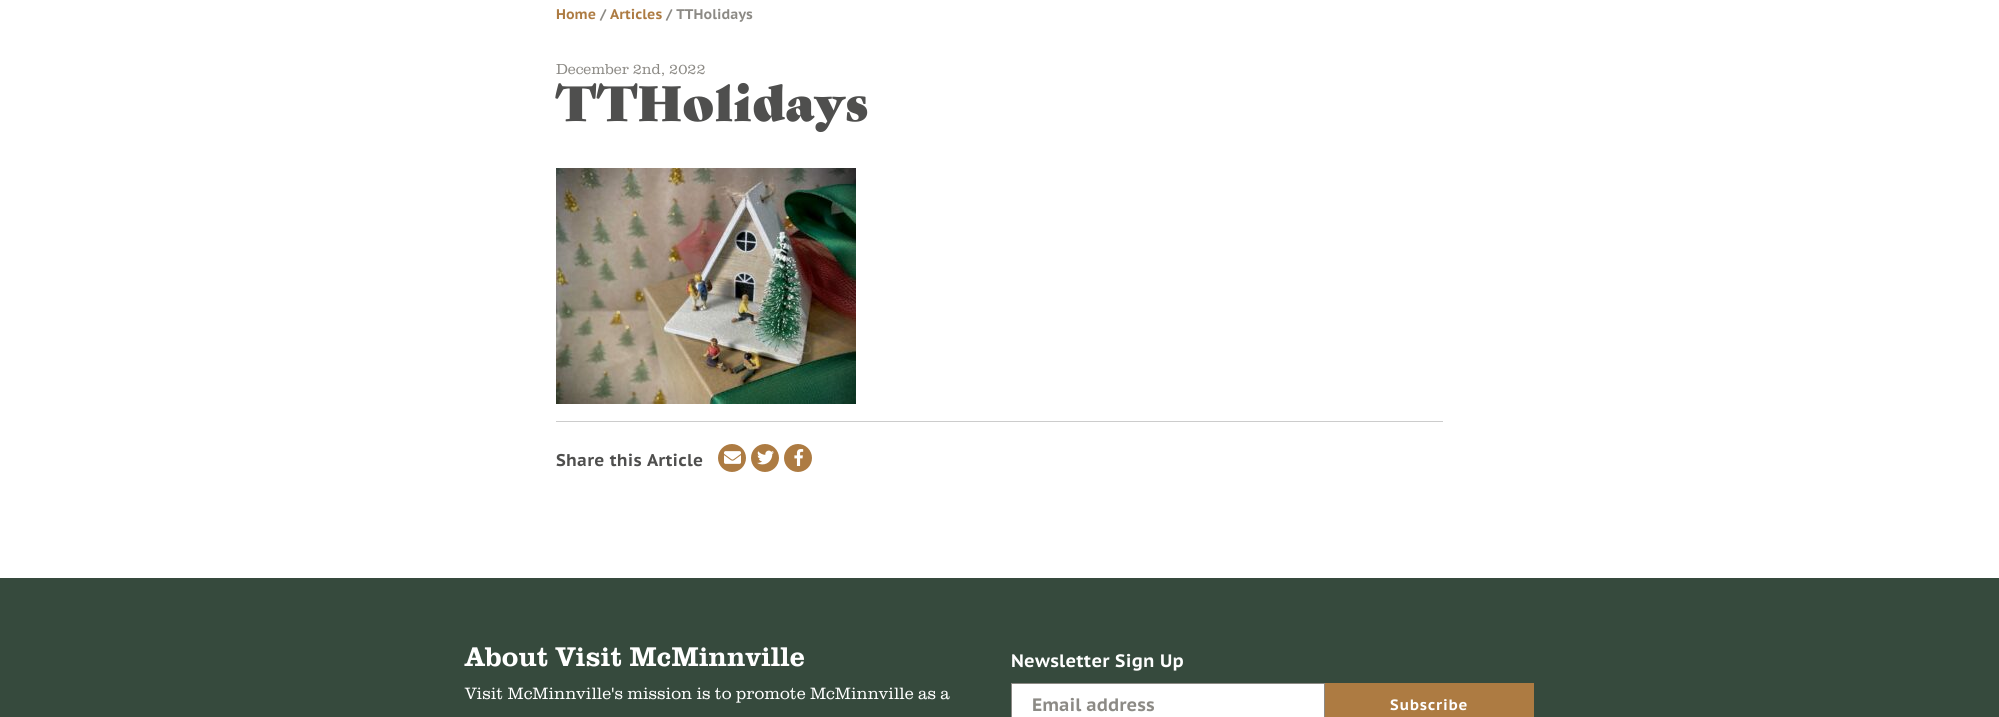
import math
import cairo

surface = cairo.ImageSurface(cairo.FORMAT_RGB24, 1999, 717)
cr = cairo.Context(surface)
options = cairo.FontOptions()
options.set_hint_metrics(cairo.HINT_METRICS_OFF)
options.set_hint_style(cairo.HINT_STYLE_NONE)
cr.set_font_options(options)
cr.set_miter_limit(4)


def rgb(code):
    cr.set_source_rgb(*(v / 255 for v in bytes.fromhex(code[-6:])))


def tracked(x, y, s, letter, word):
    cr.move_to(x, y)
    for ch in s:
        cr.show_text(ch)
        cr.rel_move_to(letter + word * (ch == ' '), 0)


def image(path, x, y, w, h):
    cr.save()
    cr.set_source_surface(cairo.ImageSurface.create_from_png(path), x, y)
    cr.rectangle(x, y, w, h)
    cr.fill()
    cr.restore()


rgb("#ffffff")
cr.paint()
image("img/1.png", 556, 168, 300, 236)
rgb("#cccccc")
cr.rectangle(556, 421, 887, 1)
cr.fill()
rgb("#ad7b42")
cr.arc(732, 458, 14, 0, 2 * math.pi)
cr.fill()
image("img/2.png", 724, 451, 17, 13)
cr.arc(765, 458, 14, 0, 2 * math.pi)
cr.fill()
image("img/3.png", 757, 450, 17, 15)
cr.arc(798, 458, 14, 0, 2 * math.pi)
cr.fill()
image("img/4.png", 794, 449, 10, 17)
rgb("#364a3d")
cr.rectangle(0, 578, 1999, 139)
cr.fill()
rgb("#ffffff")
cr.rectangle(1011.5, 683.5, 313, 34)
cr.fill_preserve()
rgb("#8c8a85")
cr.set_line_width(1)
cr.stroke()
rgb("#ad7b42")
cr.rectangle(1325, 683, 209, 34)
cr.fill()
cr.select_font_face("PT Sans Caption", cairo.FONT_SLANT_NORMAL, cairo.FONT_WEIGHT_BOLD)
cr.set_font_size(14)
tracked(556, 19, "Home", 0.05, 0)
rgb("#8c8a85")
tracked(600, 19, "/", 0.05, 0)
rgb("#ad7b42")
tracked(610, 19, "Articles", 0.05, 0)
rgb("#8c8a85")
tracked(666, 19, "/ TTHolidays", 0.05, 0)
cr.select_font_face("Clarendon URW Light")
cr.set_font_size(15)
cr.move_to(556, 74)
cr.show_text("December 2nd, 2022")
cr.select_font_face("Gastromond")
cr.set_font_size(48)
rgb("#4f4f4e")
tracked(556, 121, "TTHolidays", 1, 0)
cr.select_font_face("PT Sans Caption", cairo.FONT_SLANT_NORMAL, cairo.FONT_WEIGHT_BOLD)
cr.set_font_size(17)
tracked(556, 466, "Share this Article", 0.25, 0)
cr.select_font_face("Clarendon URW Medium")
cr.set_font_size(28)
rgb("#ffffff")
cr.move_to(465, 666)
cr.show_text("About Visit McMinnville")
cr.select_font_face("Clarendon URW Light")
cr.set_font_size(17)
tracked(465, 699, "Visit McMinnville's mission is to promote McMinnville as a", 0.05, 0)
cr.select_font_face("PT Sans Caption", cairo.FONT_SLANT_NORMAL, cairo.FONT_WEIGHT_BOLD)
cr.set_font_size(18)
tracked(1011, 667, "Newsletter Sign Up", 0.25, 0)
rgb("#8c8a85")
cr.move_to(1032, 711)
cr.show_text("Email address")
cr.set_font_size(15)
rgb("#ffffff")
tracked(1390, 710, "Subscribe", 0.75, 0)
surface.write_to_png("page.png")
